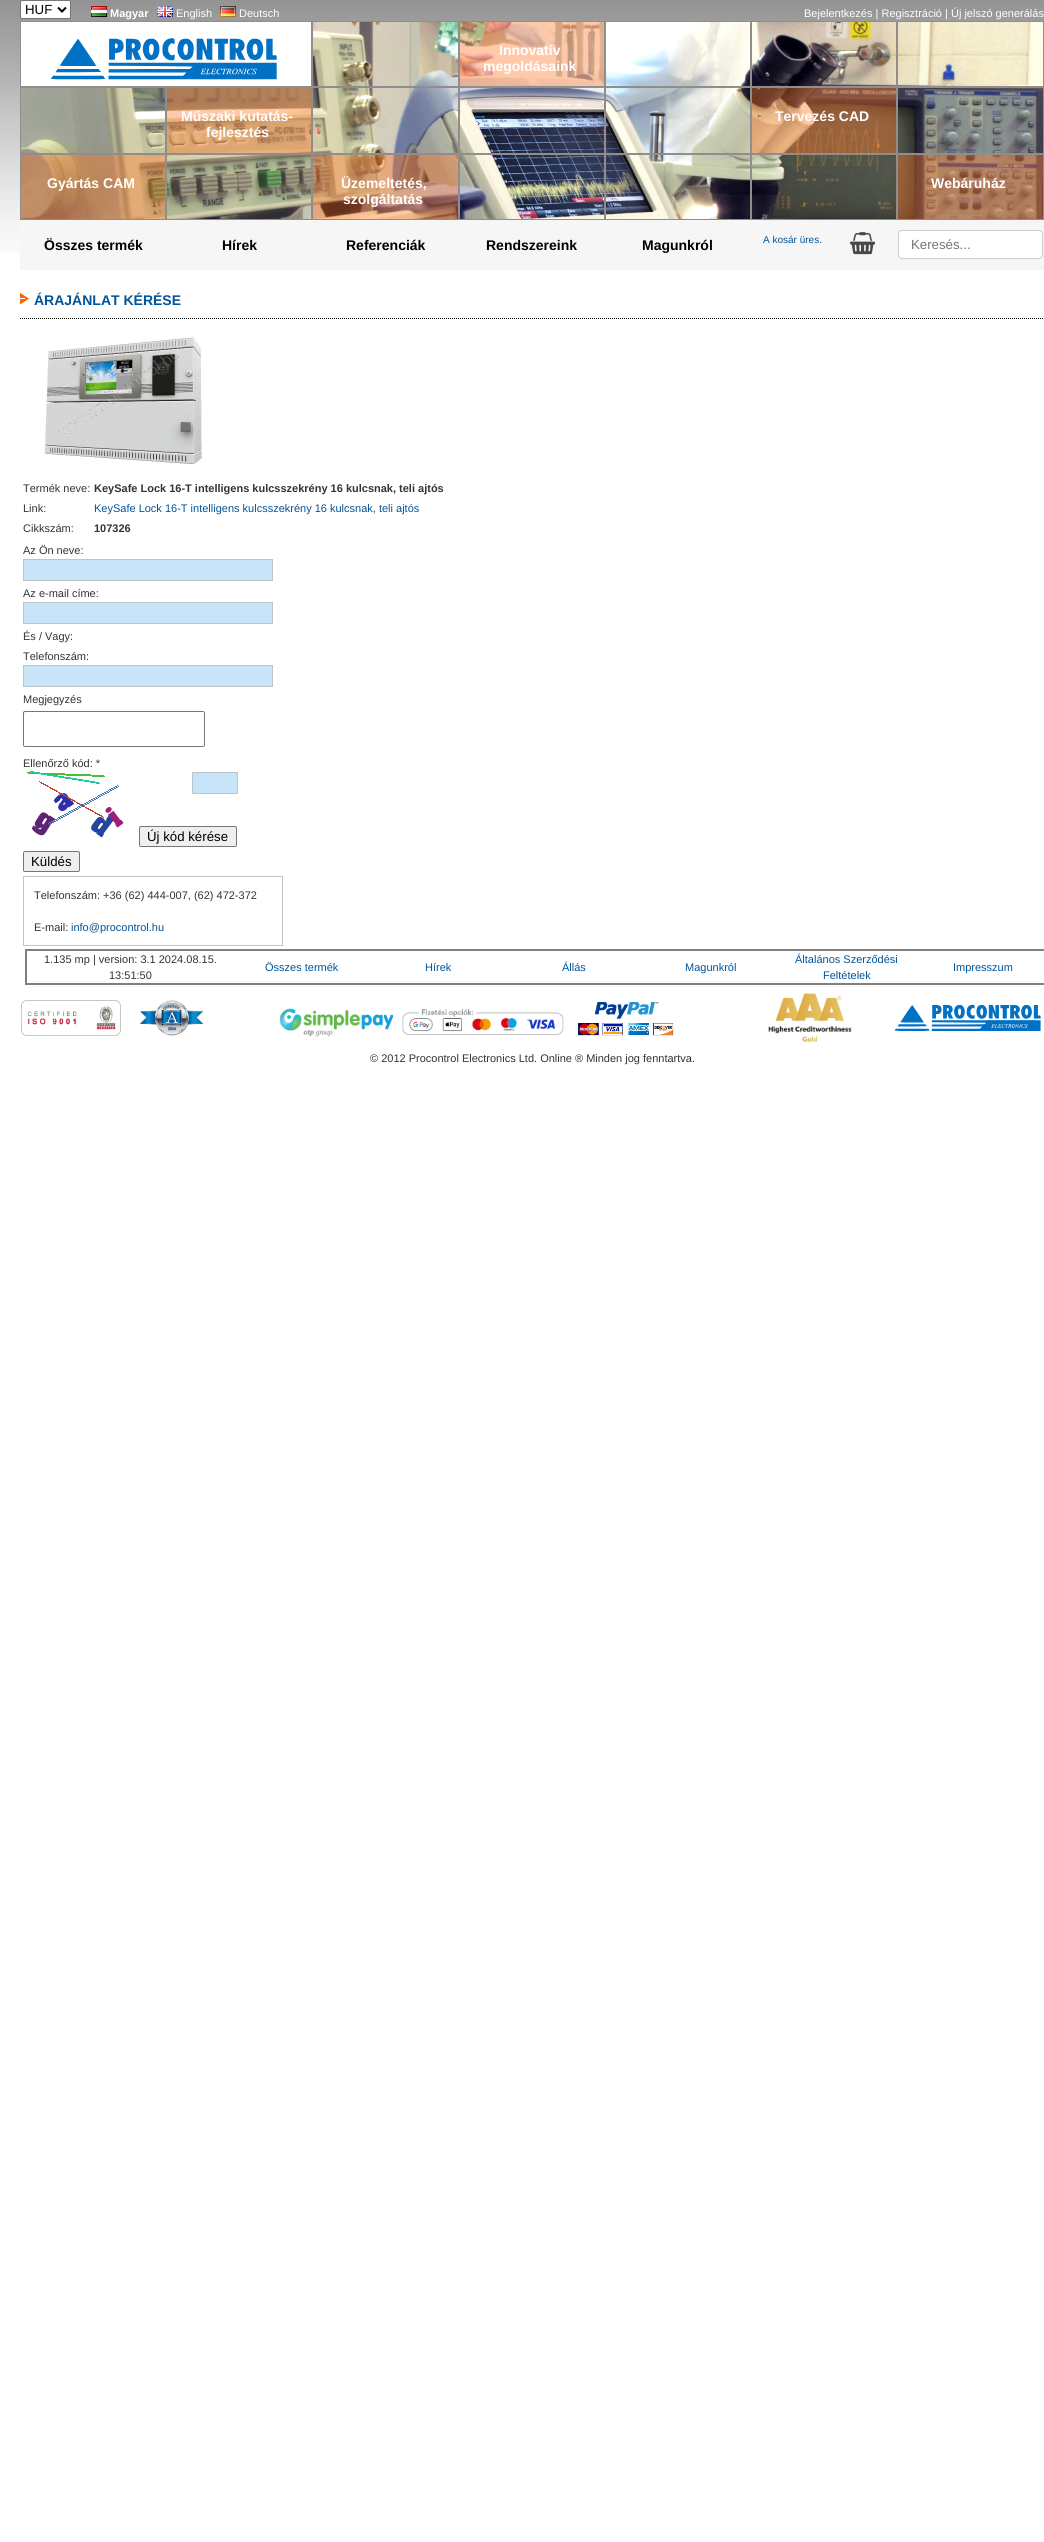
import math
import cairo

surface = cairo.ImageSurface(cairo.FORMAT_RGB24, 1044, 2542)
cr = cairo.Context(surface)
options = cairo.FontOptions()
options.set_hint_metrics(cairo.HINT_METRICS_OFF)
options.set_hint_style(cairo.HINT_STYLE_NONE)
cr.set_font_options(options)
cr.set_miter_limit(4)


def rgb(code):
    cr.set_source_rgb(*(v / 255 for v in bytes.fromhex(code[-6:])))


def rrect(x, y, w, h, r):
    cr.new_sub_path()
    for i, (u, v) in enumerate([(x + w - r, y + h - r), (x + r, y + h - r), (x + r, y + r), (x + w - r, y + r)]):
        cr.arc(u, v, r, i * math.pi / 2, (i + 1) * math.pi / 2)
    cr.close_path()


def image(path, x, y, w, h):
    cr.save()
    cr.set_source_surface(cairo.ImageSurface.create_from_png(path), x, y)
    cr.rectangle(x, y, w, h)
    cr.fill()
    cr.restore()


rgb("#ffffff")
cr.paint()
image("img/1.png", 0, 0, 1044, 253)
rgb("#ffffff")
rrect(20.5, 0.5, 50, 18, 1.5)
cr.fill_preserve()
rgb("#767676")
cr.set_line_width(1)
cr.stroke()
cr.new_path()
cr.move_to(58, 7.5)
cr.line_to(62, 11.5)
cr.line_to(66, 7.5)
rgb("#000000")
cr.set_line_width(2)
cr.stroke()
image("img/2.png", 91, 6, 16, 11)
image("img/3.png", 157, 6, 16, 11)
image("img/4.png", 220, 6, 16, 11)
image("img/5.png", 21, 22, 1022, 197)
rgb("#ffffff")
cr.rectangle(20.5, 21.5, 291, 65)
cr.fill_preserve()
rgb("#928d8d")
cr.set_line_width(1)
cr.stroke()
image("img/6.png", 51, 38, 226, 42)
cr.rectangle(312.5, 21.5, 146, 65)
cr.stroke()
cr.set_source_rgba(1, 0.478, 0.173, 0.4)
cr.rectangle(459.5, 21.5, 145, 65)
cr.fill_preserve()
rgb("#928d8d")
cr.stroke()
cr.rectangle(605.5, 21.5, 145, 65)
cr.stroke()
cr.rectangle(751.5, 21.5, 145, 65)
cr.stroke()
cr.rectangle(897.5, 21.5, 146, 65)
cr.stroke()
cr.rectangle(20.5, 87.5, 145, 66)
cr.stroke()
cr.set_source_rgba(1, 0.478, 0.173, 0.4)
cr.rectangle(166.5, 87.5, 145, 66)
cr.fill_preserve()
rgb("#928d8d")
cr.stroke()
cr.rectangle(312.5, 87.5, 146, 66)
cr.stroke()
cr.rectangle(459.5, 87.5, 145, 66)
cr.stroke()
cr.rectangle(605.5, 87.5, 145, 66)
cr.stroke()
cr.set_source_rgba(1, 0.478, 0.173, 0.4)
cr.rectangle(751.5, 87.5, 145, 66)
cr.fill_preserve()
rgb("#928d8d")
cr.stroke()
cr.rectangle(897.5, 87.5, 146, 66)
cr.stroke()
cr.set_source_rgba(1, 0.478, 0.173, 0.4)
cr.rectangle(20.5, 154.5, 145, 65)
cr.fill_preserve()
rgb("#928d8d")
cr.stroke()
cr.rectangle(166.5, 154.5, 145, 65)
cr.stroke()
cr.set_source_rgba(1, 0.478, 0.173, 0.4)
cr.rectangle(312.5, 154.5, 146, 65)
cr.fill_preserve()
rgb("#928d8d")
cr.stroke()
cr.rectangle(459.5, 154.5, 145, 65)
cr.stroke()
cr.rectangle(605.5, 154.5, 145, 65)
cr.stroke()
cr.rectangle(751.5, 154.5, 145, 65)
cr.stroke()
cr.set_source_rgba(1, 0.478, 0.173, 0.4)
cr.rectangle(897.5, 154.5, 146, 65)
cr.fill_preserve()
rgb("#928d8d")
cr.stroke()
rgb("#f6f6f6")
cr.rectangle(20, 220, 1024, 50)
cr.fill()
image("img/7.png", 850, 232, 26, 23)
rgb("#ffffff")
rrect(898.5, 230.5, 144, 28, 3.5)
cr.fill_preserve()
rgb("#cccccc")
cr.stroke()
image("img/8.png", 20, 292, 9, 13)
cr.new_path()
cr.move_to(20, 318.5)
cr.line_to(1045, 318.5)
rgb("#000000")
cr.set_dash([1, 1])
cr.stroke()
image("img/9.png", 44, 337, 158, 127)
rgb("#c8e4f9")
cr.rectangle(23.5, 559.5, 249, 21)
cr.fill_preserve()
rgb("#bdc4ca")
cr.set_dash([])
cr.stroke()
rgb("#c8e4f9")
cr.rectangle(23.5, 602.5, 249, 21)
cr.fill_preserve()
rgb("#bdc4ca")
cr.stroke()
rgb("#c8e4f9")
cr.rectangle(23.5, 665.5, 249, 21)
cr.fill_preserve()
rgb("#bdc4ca")
cr.stroke()
rrect(23.5, 711.5, 181, 35, 1.5)
rgb("#767676")
cr.stroke()
image("img/10.png", 27, 771, 97, 67)
rgb("#c8e4f9")
cr.rectangle(192.5, 772.5, 45, 21)
cr.fill_preserve()
rgb("#bdc4ca")
cr.stroke()
rgb("#efefef")
rrect(139.5, 826.5, 97, 20, 1.5)
cr.fill_preserve()
rgb("#767676")
cr.stroke()
rgb("#efefef")
rrect(23.5, 851.5, 56, 20, 1.5)
cr.fill_preserve()
rgb("#767676")
cr.stroke()
cr.rectangle(23.5, 876.5, 259, 69)
rgb("#bdc4ca")
cr.stroke()
cr.rectangle(26, 950, 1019, 34)
rgb("#808080")
cr.set_line_width(2)
cr.stroke()
image("img/11.png", 21, 1000, 100, 36)
image("img/12.png", 139, 1000, 65, 36)
image("img/13.png", 279, 1008, 285, 29)
image("img/14.png", 578, 1002, 96, 34)
image("img/15.png", 768, 993, 84, 49)
image("img/16.png", 894, 1004, 147, 27)
cr.select_font_face("Liberation Sans")
cr.set_font_size(13.25)
rgb("#000000")
cr.move_to(25, 14)
cr.show_text("HUF")
cr.select_font_face("Liberation Sans", cairo.FONT_SLANT_NORMAL, cairo.FONT_WEIGHT_BOLD)
cr.set_font_size(11)
rgb("#ffffff")
cr.move_to(110, 17)
cr.show_text("Magyar")
cr.select_font_face("Liberation Sans")
for x, y, s in [
    (176, 17, "English"),
    (239, 17, "Deutsch"),
    (804, 17, "Bejelentkezés | Regisztráció | Új jelszó generálás"),
]:
    cr.move_to(x, y)
    cr.show_text(s)
cr.select_font_face("Liberation Sans", cairo.FONT_SLANT_NORMAL, cairo.FONT_WEIGHT_BOLD)
cr.set_font_size(14)
for x, y, s in [
    (499, 55, "Innovatív"),
    (483, 71, "megoldásaink"),
    (181, 121, "Műszaki kutatás-"),
    (206, 137, "fejlesztés"),
    (775, 121, "Tervezés CAD"),
    (47, 188, "Gyártás CAM"),
    (341, 188, "Üzemeltetés,"),
    (343, 204, "szolgáltatás"),
    (931, 188, "Webáruház"),
]:
    cr.move_to(x, y)
    cr.show_text(s)
rgb("#000000")
for x, y, s in [
    (44, 250, "Összes termék"),
    (222, 250, "Hírek"),
    (346, 250, "Referenciák"),
    (486, 250, "Rendszereink"),
    (642, 250, "Magunkról"),
]:
    cr.move_to(x, y)
    cr.show_text(s)
cr.select_font_face("Liberation Sans")
cr.set_font_size(10)
rgb("#00549a")
cr.move_to(763, 243)
cr.show_text("A kosár üres.")
cr.set_font_size(13.25)
rgb("#757575")
cr.move_to(911, 249)
cr.show_text("Keresés...")
cr.select_font_face("Liberation Sans", cairo.FONT_SLANT_NORMAL, cairo.FONT_WEIGHT_BOLD)
cr.set_font_size(14)
rgb("#00549a")
cr.move_to(34, 305)
cr.show_text("ÁRAJÁNLAT KÉRÉSE")
cr.select_font_face("Liberation Sans")
cr.set_font_size(11)
rgb("#333333")
cr.move_to(23, 492)
cr.show_text("Termék neve:")
cr.select_font_face("Liberation Sans", cairo.FONT_SLANT_NORMAL, cairo.FONT_WEIGHT_BOLD)
cr.move_to(94, 492)
cr.show_text("KeySafe Lock 16-T intelligens kulcsszekrény 16 kulcsnak, teli ajtós")
cr.select_font_face("Liberation Sans")
cr.move_to(23, 512)
cr.show_text("Link:")
rgb("#00549a")
cr.move_to(94, 512)
cr.show_text("KeySafe Lock 16-T intelligens kulcsszekrény 16 kulcsnak, teli ajtós")
rgb("#333333")
cr.move_to(23, 532)
cr.show_text("Cikkszám:")
cr.select_font_face("Liberation Sans", cairo.FONT_SLANT_NORMAL, cairo.FONT_WEIGHT_BOLD)
cr.move_to(94, 532)
cr.show_text("107326")
cr.select_font_face("Liberation Sans")
for x, y, s in [
    (23, 554, "Az Ön neve:"),
    (23, 597, "Az e-mail címe:"),
    (23, 640, "És / Vagy:"),
    (23, 660, "Telefonszám:"),
    (23, 703, "Megjegyzés"),
    (23, 767, "Ellenőrző kód: *"),
]:
    cr.move_to(x, y)
    cr.show_text(s)
cr.set_font_size(13.25)
rgb("#000000")
cr.move_to(147, 841)
cr.show_text("Új kód kérése")
cr.move_to(31, 866)
cr.show_text("Küldés")
cr.set_font_size(11)
rgb("#333333")
cr.move_to(34, 899)
cr.show_text("Telefonszám: +36 (62) 444-007, (62) 472-372")
cr.move_to(34, 931)
cr.show_text("E-mail:")
rgb("#00549a")
cr.move_to(71, 931)
cr.show_text("info@procontrol.hu")
rgb("#333333")
cr.move_to(44, 963)
cr.show_text("1.135 mp | version: 3.1 2024.08.15.")
cr.move_to(109, 979)
cr.show_text("13:51:50")
rgb("#00549a")
for x, y, s in [
    (265, 971, "Összes termék"),
    (425, 971, "Hírek"),
    (562, 971, "Állás"),
    (685, 971, "Magunkról"),
    (795, 963, "Általános Szerződési"),
    (823, 979, "Feltételek"),
    (953, 971, "Impresszum"),
]:
    cr.move_to(x, y)
    cr.show_text(s)
rgb("#333333")
cr.move_to(370, 1062)
cr.show_text("© 2012 Procontrol Electronics Ltd. Online ® Minden jog fenntartva.")
surface.write_to_png("page.png")
